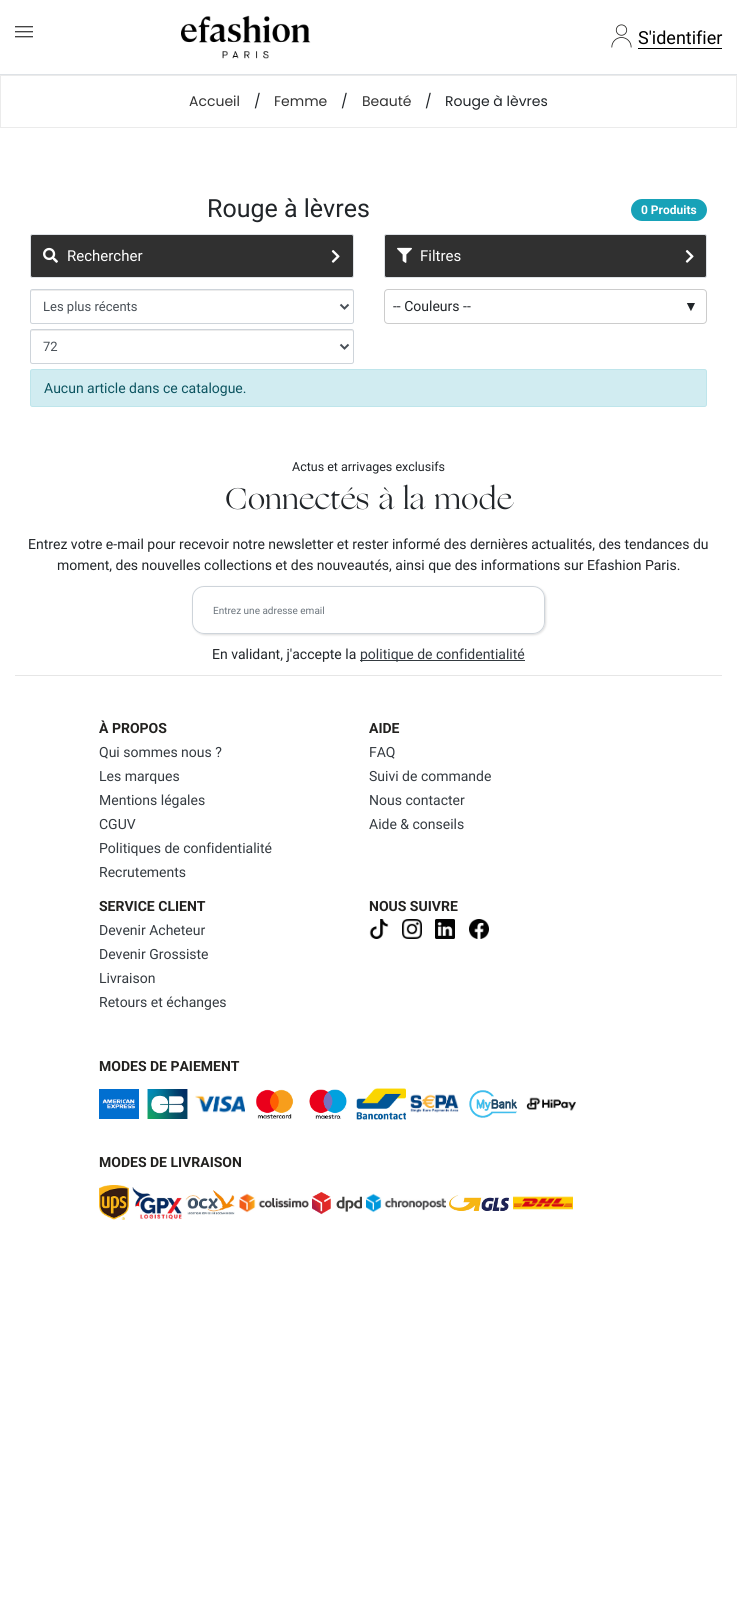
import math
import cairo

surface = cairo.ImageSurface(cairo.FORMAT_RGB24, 737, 1624)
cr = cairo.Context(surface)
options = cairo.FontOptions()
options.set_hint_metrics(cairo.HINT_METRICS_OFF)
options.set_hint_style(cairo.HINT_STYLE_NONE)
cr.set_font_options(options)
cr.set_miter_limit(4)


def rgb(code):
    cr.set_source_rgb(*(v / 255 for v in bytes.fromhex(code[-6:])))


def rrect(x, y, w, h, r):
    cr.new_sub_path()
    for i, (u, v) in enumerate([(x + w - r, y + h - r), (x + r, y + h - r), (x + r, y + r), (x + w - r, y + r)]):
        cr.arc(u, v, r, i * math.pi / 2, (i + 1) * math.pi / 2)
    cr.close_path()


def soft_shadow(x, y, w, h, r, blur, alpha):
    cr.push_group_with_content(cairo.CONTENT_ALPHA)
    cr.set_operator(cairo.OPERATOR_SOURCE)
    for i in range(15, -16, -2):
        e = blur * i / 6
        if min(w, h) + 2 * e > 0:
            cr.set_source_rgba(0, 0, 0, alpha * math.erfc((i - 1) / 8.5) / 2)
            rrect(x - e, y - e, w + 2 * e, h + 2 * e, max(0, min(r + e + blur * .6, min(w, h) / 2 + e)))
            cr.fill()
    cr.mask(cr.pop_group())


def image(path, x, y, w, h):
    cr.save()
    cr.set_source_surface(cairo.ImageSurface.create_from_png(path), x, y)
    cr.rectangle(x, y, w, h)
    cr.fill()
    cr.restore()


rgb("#ffffff")
cr.paint()
rgb("#dee2e6")
cr.rectangle(0, 74, 737, 1)
cr.fill()
image("img/1.png", 15, 26, 18, 12)
image("img/2.png", 181, 15, 130, 44)
image("img/3.png", 611, 24, 21, 24)
rgb("#000000")
cr.rectangle(638, 48, 84, 1)
cr.fill()
cr.rectangle(0.5, 75.5, 736, 52)
rgb("#ebebeb")
cr.set_line_width(1)
cr.stroke()
rgb("#17a2b8")
rrect(631, 199, 76, 22, 11)
cr.fill()
rgb("#303030")
rrect(30.5, 234.5, 323, 43, 2)
cr.fill_preserve()
rgb("#dee2e6")
cr.stroke()
image("img/4.png", 43, 247, 15, 16)
image("img/5.png", 331, 250, 9, 13)
rgb("#303030")
rrect(384.5, 234.5, 322, 43, 2)
cr.fill_preserve()
rgb("#dee2e6")
cr.stroke()
image("img/6.png", 397, 247, 15, 16)
image("img/5.png", 685, 250, 9, 13)
rgb("#ececec")
cr.new_path()
cr.move_to(32, 291)
cr.line_to(352, 291)
cr.line_to(353, 292)
cr.curve_to(353, 291, 353, 290, 352, 290)
cr.line_to(32, 290)
cr.line_to(31, 291)
cr.line_to(31, 292)
cr.close_path()
cr.fill()
rrect(30.5, 289.5, 323, 34, 2)
rgb("#ced4da")
cr.stroke()
cr.new_path()
cr.move_to(340.5, 304.5)
cr.line_to(344.5, 308.5)
cr.line_to(348.5, 304.5)
rgb("#495057")
cr.set_line_width(2)
cr.stroke()
rrect(384.5, 289.5, 322, 34, 3.5)
rgb("#cccccc")
cr.set_line_width(1)
cr.stroke()
rgb("#ececec")
cr.new_path()
cr.move_to(32, 331)
cr.line_to(352, 331)
cr.line_to(353, 332)
cr.curve_to(353, 331, 353, 330, 352, 330)
cr.line_to(32, 330)
cr.line_to(31, 331)
cr.line_to(31, 332)
cr.close_path()
cr.fill()
rrect(30.5, 329.5, 323, 34, 2)
rgb("#ced4da")
cr.stroke()
cr.new_path()
cr.move_to(340.5, 344.5)
cr.line_to(344.5, 348.5)
cr.line_to(348.5, 344.5)
rgb("#495057")
cr.set_line_width(2)
cr.stroke()
rgb("#d1ecf1")
rrect(30.5, 369.5, 676, 37, 2)
cr.fill_preserve()
rgb("#bee5eb")
cr.set_line_width(1)
cr.stroke()
cr.save()
cr.set_fill_rule(cairo.FILL_RULE_EVEN_ODD)
cr.new_path()
cr.move_to(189, 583)
cr.line_to(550, 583)
cr.line_to(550, 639)
cr.line_to(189, 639)
cr.close_path()
cr.move_to(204, 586)
cr.line_to(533, 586)
cr.curve_to(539.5, 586, 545, 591.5, 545, 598)
cr.line_to(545, 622)
cr.curve_to(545, 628.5, 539.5, 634, 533, 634)
cr.line_to(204, 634)
cr.curve_to(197.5, 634, 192, 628.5, 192, 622)
cr.line_to(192, 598)
cr.curve_to(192, 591.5, 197.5, 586, 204, 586)
cr.close_path()
cr.clip()
rgb("#dddddd")
soft_shadow(193, 587, 353, 48, 12, 1, 1)
cr.restore()
rrect(192.5, 586.5, 352, 47, 11.5)
rgb("#ced4da")
cr.stroke()
rgb("#343a40")
cr.rectangle(360, 660, 165, 1)
cr.fill()
rgb("#e6e6e6")
cr.rectangle(15, 675, 707, 1)
cr.fill()
image("img/7.png", 369, 919, 20, 20)
image("img/8.png", 402, 919, 20, 20)
image("img/9.png", 435, 919, 20, 20)
image("img/10.png", 469, 919, 20, 20)
image("img/11.png", 99, 1089, 40, 30)
image("img/12.png", 147, 1089, 41, 30)
image("img/13.png", 195, 1095, 50, 18)
image("img/14.png", 256, 1089, 38, 30)
image("img/15.png", 309, 1089, 38, 30)
image("img/16.png", 356, 1088, 50, 32)
image("img/17.png", 410, 1094, 49, 19)
image("img/18.png", 469, 1090, 49, 28)
image("img/19.png", 526, 1097, 50, 14)
image("img/20.png", 99, 1185, 30, 35)
image("img/21.png", 132, 1187, 50, 33)
image("img/22.png", 185, 1190, 50, 25)
image("img/23.png", 239, 1193, 70, 20)
image("img/24.png", 312, 1192, 50, 23)
image("img/25.png", 366, 1193, 80, 20)
image("img/26.png", 449, 1195, 60, 16)
image("img/27.png", 513, 1196, 60, 14)
cr.select_font_face("Roboto")
cr.set_font_size(18)
rgb("#000000")
cr.move_to(638, 44)
cr.show_text("S'identifier")
cr.select_font_face("Poppins")
cr.set_font_size(14)
rgb("#333333")
cr.move_to(189, 106)
cr.show_text("Accueil")
rgb("#212529")
cr.move_to(254, 106)
cr.show_text("/")
rgb("#333333")
cr.move_to(274, 106)
cr.show_text("Femme")
rgb("#212529")
cr.move_to(341, 106)
cr.show_text("/")
rgb("#333333")
cr.move_to(362, 106)
cr.show_text("Beauté")
rgb("#212529")
cr.move_to(425, 106)
cr.show_text("/")
cr.move_to(445, 106)
cr.show_text("Rouge à lèvres")
cr.select_font_face("Roboto")
cr.set_font_size(25)
cr.move_to(207, 217)
cr.show_text("Rouge à lèvres")
cr.select_font_face("Roboto", cairo.FONT_SLANT_NORMAL, cairo.FONT_WEIGHT_BOLD)
cr.set_font_size(12)
rgb("#ffffff")
cr.move_to(641, 214)
cr.show_text("0 Produits")
cr.select_font_face("Roboto")
cr.set_font_size(15)
cr.move_to(67, 261)
cr.show_text("Rechercher")
cr.move_to(420, 261)
cr.show_text("Filtres")
cr.set_font_size(13)
rgb("#495057")
cr.move_to(43, 311)
cr.show_text("Les plus récents")
cr.set_font_size(14)
rgb("#212529")
cr.move_to(393, 311)
cr.show_text("-- Couleurs --")
cr.select_font_face("Liberation Sans")
cr.move_to(684, 311)
cr.show_text("▼")
cr.select_font_face("Roboto")
cr.set_font_size(13)
rgb("#495057")
cr.move_to(43, 351)
cr.show_text("72")
cr.set_font_size(14)
rgb("#0c5460")
cr.move_to(44, 393)
cr.show_text("Aucun article dans ce catalogue.")
cr.set_font_size(12.5)
rgb("#212529")
cr.move_to(292, 471)
cr.show_text("Actus et arrivages exclusifs")
cr.select_font_face("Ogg")
cr.set_font_size(30)
cr.move_to(225, 509)
cr.show_text("Connectés à la mode")
cr.select_font_face("Roboto")
cr.set_font_size(14)
cr.move_to(28, 549)
cr.show_text("Entrez votre e-mail pour recevoir notre newsletter et rester informé des dernières actualités, des tendances du")
cr.move_to(57, 570)
cr.show_text("moment, des nouvelles collections et des nouveautés, ainsi que des informations sur Efashion Paris.")
cr.set_font_size(10)
rgb("#6c757d")
cr.move_to(213, 614)
cr.show_text("Entrez une adresse email")
cr.set_font_size(14)
rgb("#212529")
cr.move_to(212, 659)
cr.show_text("En validant, j'accepte la")
rgb("#343a40")
cr.move_to(360, 659)
cr.show_text("politique de confidentialité")
cr.select_font_face("Roboto", cairo.FONT_SLANT_NORMAL, cairo.FONT_WEIGHT_BOLD)
rgb("#22211f")
cr.move_to(99, 733)
cr.show_text("À PROPOS")
cr.select_font_face("Roboto")
rgb("#343a40")
for x, y, s in [
    (99, 757, "Qui sommes nous ?"),
    (99, 781, "Les marques"),
    (99, 805, "Mentions légales"),
    (99, 829, "CGUV"),
    (99, 853, "Politiques de confidentialité"),
    (99, 877, "Recrutements"),
]:
    cr.move_to(x, y)
    cr.show_text(s)
cr.select_font_face("Roboto", cairo.FONT_SLANT_NORMAL, cairo.FONT_WEIGHT_BOLD)
rgb("#22211f")
cr.move_to(369, 733)
cr.show_text("AIDE")
cr.select_font_face("Roboto")
rgb("#343a40")
for x, y, s in [
    (369, 757, "FAQ"),
    (369, 781, "Suivi de commande"),
    (369, 805, "Nous contacter"),
    (369, 829, "Aide & conseils"),
]:
    cr.move_to(x, y)
    cr.show_text(s)
cr.select_font_face("Roboto", cairo.FONT_SLANT_NORMAL, cairo.FONT_WEIGHT_BOLD)
rgb("#22211f")
cr.move_to(99, 911)
cr.show_text("SERVICE CLIENT")
cr.select_font_face("Roboto")
rgb("#343a40")
for x, y, s in [
    (99, 935, "Devenir Acheteur"),
    (99, 959, "Devenir Grossiste"),
    (99, 983, "Livraison"),
    (99, 1007, "Retours et échanges"),
]:
    cr.move_to(x, y)
    cr.show_text(s)
cr.select_font_face("Roboto", cairo.FONT_SLANT_NORMAL, cairo.FONT_WEIGHT_BOLD)
rgb("#22211f")
for x, y, s in [
    (369, 911, "NOUS SUIVRE"),
    (99, 1071, "MODES DE PAIEMENT"),
    (99, 1167, "MODES DE LIVRAISON"),
]:
    cr.move_to(x, y)
    cr.show_text(s)
surface.write_to_png("page.png")
